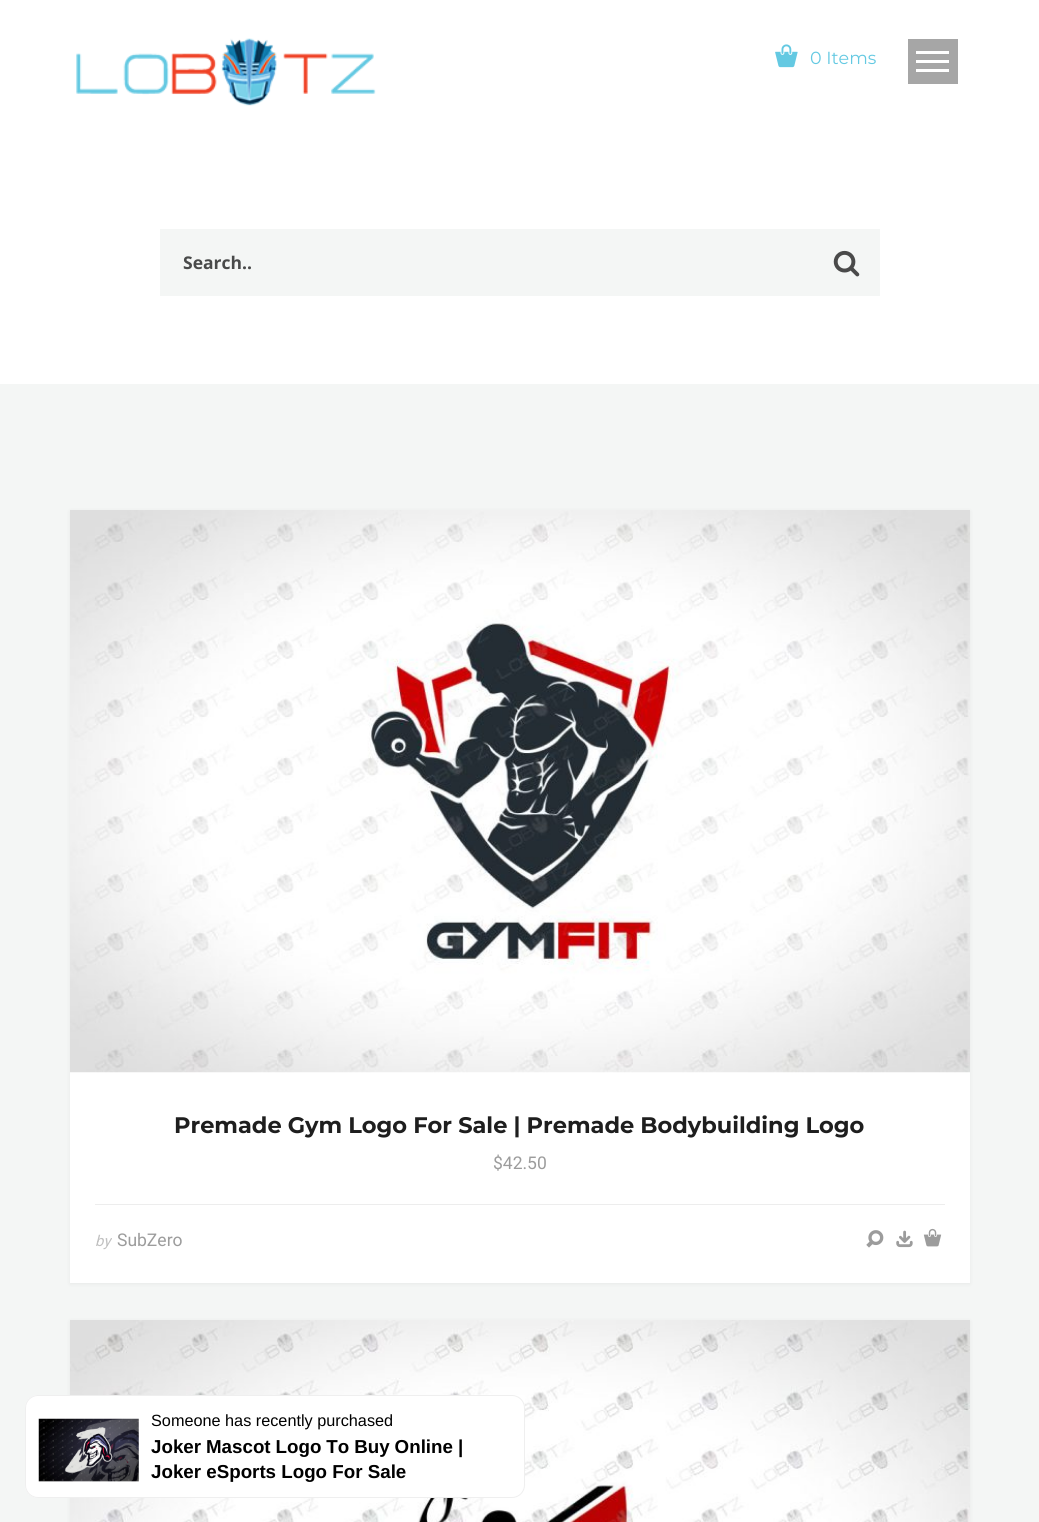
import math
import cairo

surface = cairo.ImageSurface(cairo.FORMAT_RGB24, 1039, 1522)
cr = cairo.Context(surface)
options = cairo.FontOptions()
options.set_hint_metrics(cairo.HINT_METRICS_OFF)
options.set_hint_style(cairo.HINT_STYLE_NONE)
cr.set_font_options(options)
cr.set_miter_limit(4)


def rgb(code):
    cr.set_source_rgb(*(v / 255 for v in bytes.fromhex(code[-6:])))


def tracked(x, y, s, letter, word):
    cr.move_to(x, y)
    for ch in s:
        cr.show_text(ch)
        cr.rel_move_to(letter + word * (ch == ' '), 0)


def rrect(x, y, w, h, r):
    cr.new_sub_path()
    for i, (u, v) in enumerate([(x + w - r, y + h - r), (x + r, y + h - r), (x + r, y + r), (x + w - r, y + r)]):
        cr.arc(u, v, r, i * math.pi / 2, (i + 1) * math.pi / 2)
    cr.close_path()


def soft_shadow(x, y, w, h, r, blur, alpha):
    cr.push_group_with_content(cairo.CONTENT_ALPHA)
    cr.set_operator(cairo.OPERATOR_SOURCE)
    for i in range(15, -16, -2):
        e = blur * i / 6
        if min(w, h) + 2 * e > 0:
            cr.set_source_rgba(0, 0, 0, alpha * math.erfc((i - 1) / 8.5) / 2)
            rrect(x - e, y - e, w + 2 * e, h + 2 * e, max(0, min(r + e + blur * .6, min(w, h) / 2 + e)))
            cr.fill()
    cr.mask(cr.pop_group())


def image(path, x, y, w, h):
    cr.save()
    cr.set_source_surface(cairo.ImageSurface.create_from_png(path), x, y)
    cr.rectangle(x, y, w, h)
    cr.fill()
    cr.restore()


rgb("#f4f6f5")
cr.paint()
rgb("#ffffff")
cr.rectangle(0, 0, 1039, 384)
cr.fill()
image("img/1.png", 76, 38, 300, 68)
image("img/2.png", 775, 44, 23, 24)
for x, y, w, h, color in [
    (908, 39, 50, 45, "#a6a6a6"),
    (916, 51, 33, 3, "#ffffff"),
    (916, 60, 33, 3, "#ffffff"),
    (916, 69, 33, 3, "#ffffff"),
    (160, 229, 720, 67, "#f4f6f5"),
]:
    rgb(color)
    cr.rectangle(x, y, w, h)
    cr.fill()
image("img/3.png", 833, 250, 27, 27)
rgb("#000000")
soft_shadow(70, 511, 900, 773, 0, 2, 0.06)
rgb("#ffffff")
cr.rectangle(70, 1072, 900, 211)
cr.fill()
image("img/4.png", 70, 510, 900, 563)
rgb("#ededed")
cr.rectangle(95, 1204, 850, 1)
cr.fill()
image("img/5.png", 866, 1230, 18, 18)
image("img/6.png", 896, 1230, 17, 18)
image("img/7.png", 923, 1228, 19, 19)
rgb("#000000")
soft_shadow(70, 1321, 900, 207, 0, 2, 0.06)
image("img/8.png", 70, 1320, 900, 202)
rgb("#ffffff")
rrect(25, 1395, 500, 103, 13)
cr.fill()
rrect(25.5, 1395.5, 499, 102, 12.5)
cr.set_source_rgba(0.933, 0.933, 0.933, 0.93)
cr.set_line_width(1)
cr.stroke()
image("img/9.png", 38, 1418, 101, 64)
cr.select_font_face("Montserrat")
cr.set_font_size(17.5)
rgb("#64c9e2")
cr.move_to(810, 64)
cr.show_text("0 Items")
cr.select_font_face("Open Sans", cairo.FONT_SLANT_NORMAL, cairo.FONT_WEIGHT_BOLD)
rgb("#494a4a")
cr.move_to(183, 269)
cr.show_text("Search..")
cr.select_font_face("Montserrat", cairo.FONT_SLANT_NORMAL, cairo.FONT_WEIGHT_BOLD)
cr.set_font_size(22.5)
rgb("#1e1e1e")
tracked(174, 1133, "Premade Gym Logo For Sale | Premade Bodybuilding Logo", 0, -0.25)
cr.select_font_face("Roboto")
cr.set_font_size(17.5)
rgb("#9c9c9c")
cr.move_to(493, 1169)
cr.show_text("$42.50")
cr.select_font_face("Roboto", cairo.FONT_SLANT_ITALIC)
cr.set_font_size(15)
rgb("#c1c1c1")
cr.move_to(95, 1246)
cr.show_text("by")
cr.select_font_face("Roboto")
cr.set_font_size(17.5)
rgb("#9c9c9c")
cr.move_to(117, 1246)
cr.show_text("SubZero")
cr.select_font_face("Liberation Sans")
cr.set_font_size(16.25)
rgb("#000000")
cr.move_to(151, 1426)
cr.show_text("Someone has recently purchased")
cr.select_font_face("Liberation Sans", cairo.FONT_SLANT_NORMAL, cairo.FONT_WEIGHT_BOLD)
cr.set_font_size(18.75)
tracked(151, 1453, "Joker Mascot Logo To Buy Online |", 0, -0.25)
cr.move_to(151, 1478)
cr.show_text("Joker eSports Logo For Sale")
surface.write_to_png("page.png")
